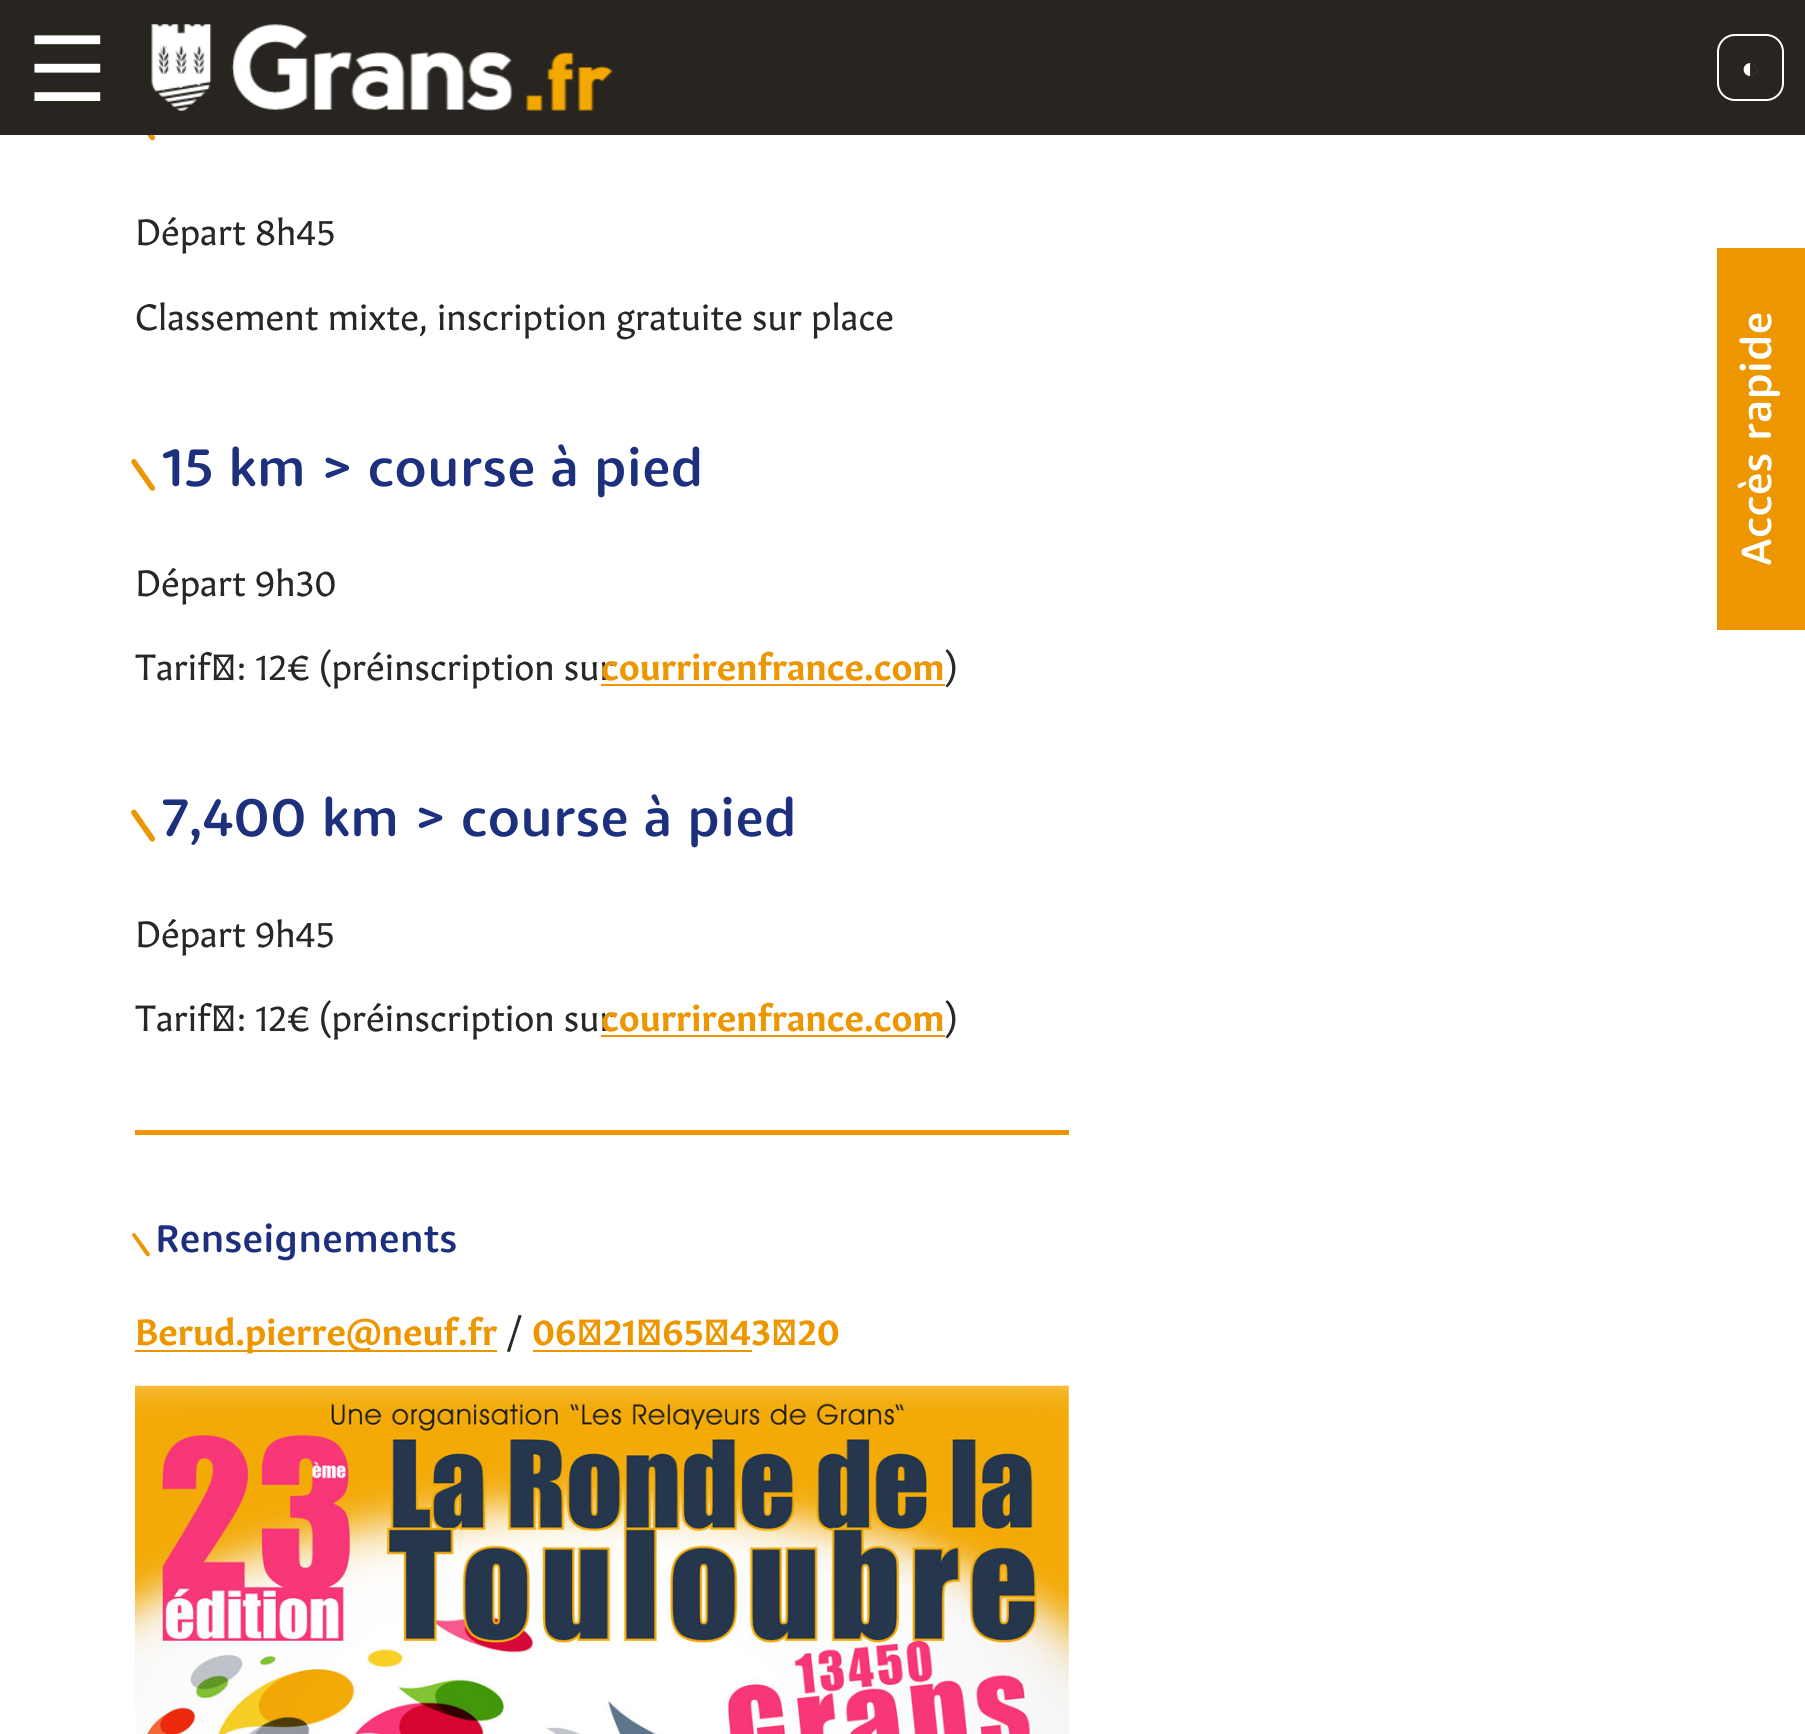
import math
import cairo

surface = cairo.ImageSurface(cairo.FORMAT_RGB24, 1805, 1734)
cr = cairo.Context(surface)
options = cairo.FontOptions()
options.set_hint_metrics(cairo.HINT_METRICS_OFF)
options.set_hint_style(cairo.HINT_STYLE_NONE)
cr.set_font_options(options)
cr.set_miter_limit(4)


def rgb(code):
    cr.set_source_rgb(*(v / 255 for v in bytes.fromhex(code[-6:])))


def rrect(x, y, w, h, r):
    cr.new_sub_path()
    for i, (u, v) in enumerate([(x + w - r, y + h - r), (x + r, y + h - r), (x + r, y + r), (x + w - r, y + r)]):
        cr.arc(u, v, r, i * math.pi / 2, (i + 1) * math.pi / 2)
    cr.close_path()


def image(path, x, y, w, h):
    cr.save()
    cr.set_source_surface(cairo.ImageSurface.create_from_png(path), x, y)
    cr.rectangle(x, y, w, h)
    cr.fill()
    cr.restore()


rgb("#ffffff")
cr.paint()
rgb("#ee9600")
cr.new_path()
cr.move_to(132.5, 109)
cr.curve_to(133.5, 108, 135, 108.5, 136, 109.5)
cr.line_to(154.5, 136)
cr.curve_to(155.5, 137.5, 155, 139, 154, 140)
cr.curve_to(152.5, 140.5, 151, 140.5, 150, 139)
cr.line_to(131.5, 112.5)
cr.curve_to(131, 111.5, 131, 109.5, 132.5, 109)
cr.close_path()
cr.fill()
rgb("#282520")
cr.rectangle(0, 0, 1805, 135)
cr.fill()
image("img/1.png", 151, 24, 462, 87)
rrect(1718, 35, 65, 65, 17)
rgb("#ffffff")
cr.stroke()
rgb("#ee9600")
cr.new_path()
cr.move_to(132.5, 459.5)
cr.curve_to(133.5, 458.5, 135, 459, 136, 460)
cr.line_to(154.5, 486.5)
cr.curve_to(155.5, 488, 155, 489.5, 154, 490.5)
cr.curve_to(152.5, 491, 151, 491, 150, 489.5)
cr.line_to(131.5, 463)
cr.curve_to(131, 462, 131, 460.5, 132.5, 459.5)
cr.close_path()
cr.fill()
cr.rectangle(601, 684, 344, 2)
cr.fill()
cr.new_path()
cr.move_to(132.5, 810)
cr.curve_to(133.5, 809, 135, 809.5, 136, 810.5)
cr.line_to(154.5, 837)
cr.curve_to(155.5, 838.5, 155, 840, 154, 841)
cr.curve_to(152.5, 842, 151, 841.5, 150, 840.5)
cr.line_to(131.5, 814)
cr.curve_to(131, 812.5, 131, 811, 132.5, 810)
cr.close_path()
cr.fill()
cr.rectangle(601, 1035, 344, 2)
cr.fill()
cr.rectangle(135, 1130, 934, 5)
cr.fill()
cr.new_path()
cr.move_to(133, 1233.5)
cr.curve_to(134, 1232.5, 135, 1233, 135.5, 1234)
cr.line_to(149.5, 1253)
cr.curve_to(150, 1254, 150, 1255.5, 149, 1256)
cr.curve_to(148, 1256.5, 147, 1256.5, 146, 1255.5)
cr.line_to(132.5, 1236)
cr.curve_to(132, 1235, 132, 1234, 133, 1233.5)
cr.close_path()
cr.fill()
cr.rectangle(135, 1350, 362, 2)
cr.fill()
cr.rectangle(533, 1350, 219, 2)
cr.fill()
image("img/2.png", 135, 1385, 934, 349)
cr.rectangle(1717, 248, 88, 382)
cr.fill()
cr.select_font_face("DejaVu Sans")
cr.set_font_size(90)
rgb("#ffffff")
cr.move_to(27, 101)
cr.show_text("☰")
cr.select_font_face("Liberation Sans")
cr.set_font_size(30)
cr.move_to(1741, 78)
cr.show_text("◐")
cr.select_font_face("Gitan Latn")
cr.set_font_size(36)
rgb("#272727")
cr.move_to(135, 245)
cr.show_text("Départ 8h45")
cr.move_to(135, 330)
cr.show_text("Classement mixte, inscription gratuite sur place")
cr.select_font_face("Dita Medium")
cr.set_font_size(54)
rgb("#1c307e")
cr.move_to(162, 486)
cr.show_text("15 km > course à pied")
cr.select_font_face("Gitan Latn")
cr.set_font_size(36)
rgb("#272727")
cr.move_to(135, 596)
cr.show_text("Départ 9h30")
cr.move_to(135, 680)
cr.show_text("Tarif : 12€ (préinscription sur")
cr.select_font_face("Gitan Latn SemiBold")
rgb("#ee9600")
cr.move_to(601, 680)
cr.show_text("courrirenfrance.com")
cr.select_font_face("Gitan Latn")
rgb("#272727")
cr.move_to(945, 680)
cr.show_text(")")
cr.select_font_face("Dita Medium")
cr.set_font_size(54)
rgb("#1c307e")
cr.move_to(162, 836)
cr.show_text("7,400 km > course à pied")
cr.select_font_face("Gitan Latn")
cr.set_font_size(36)
rgb("#272727")
cr.move_to(135, 947)
cr.show_text("Départ 9h45")
cr.move_to(135, 1031)
cr.show_text("Tarif : 12€ (préinscription sur")
cr.select_font_face("Gitan Latn SemiBold")
rgb("#ee9600")
cr.move_to(601, 1031)
cr.show_text("courrirenfrance.com")
cr.select_font_face("Gitan Latn")
rgb("#272727")
cr.move_to(945, 1031)
cr.show_text(")")
cr.select_font_face("Dita Medium")
cr.set_font_size(39.5)
rgb("#1c307e")
cr.move_to(155, 1252)
cr.show_text("Renseignements")
cr.select_font_face("Gitan Latn SemiBold")
cr.set_font_size(36)
rgb("#ee9600")
cr.move_to(135, 1345)
cr.show_text("Berud.pierre@neuf.fr")
cr.select_font_face("Gitan Latn")
rgb("#272727")
cr.move_to(506, 1345)
cr.show_text("/")
cr.select_font_face("Gitan Latn SemiBold")
rgb("#ee9600")
cr.move_to(532, 1345)
cr.show_text("06 21 65 43 20")
cr.select_font_face("Dita Medium")
cr.set_font_size(43.25)
rgb("#ffffff")
cr.save()
cr.translate(1771, 566)
cr.rotate(-90 * math.pi / 180)
cr.move_to(0, 0)
cr.show_text("Accès rapide")
cr.restore()
surface.write_to_png("page.png")
